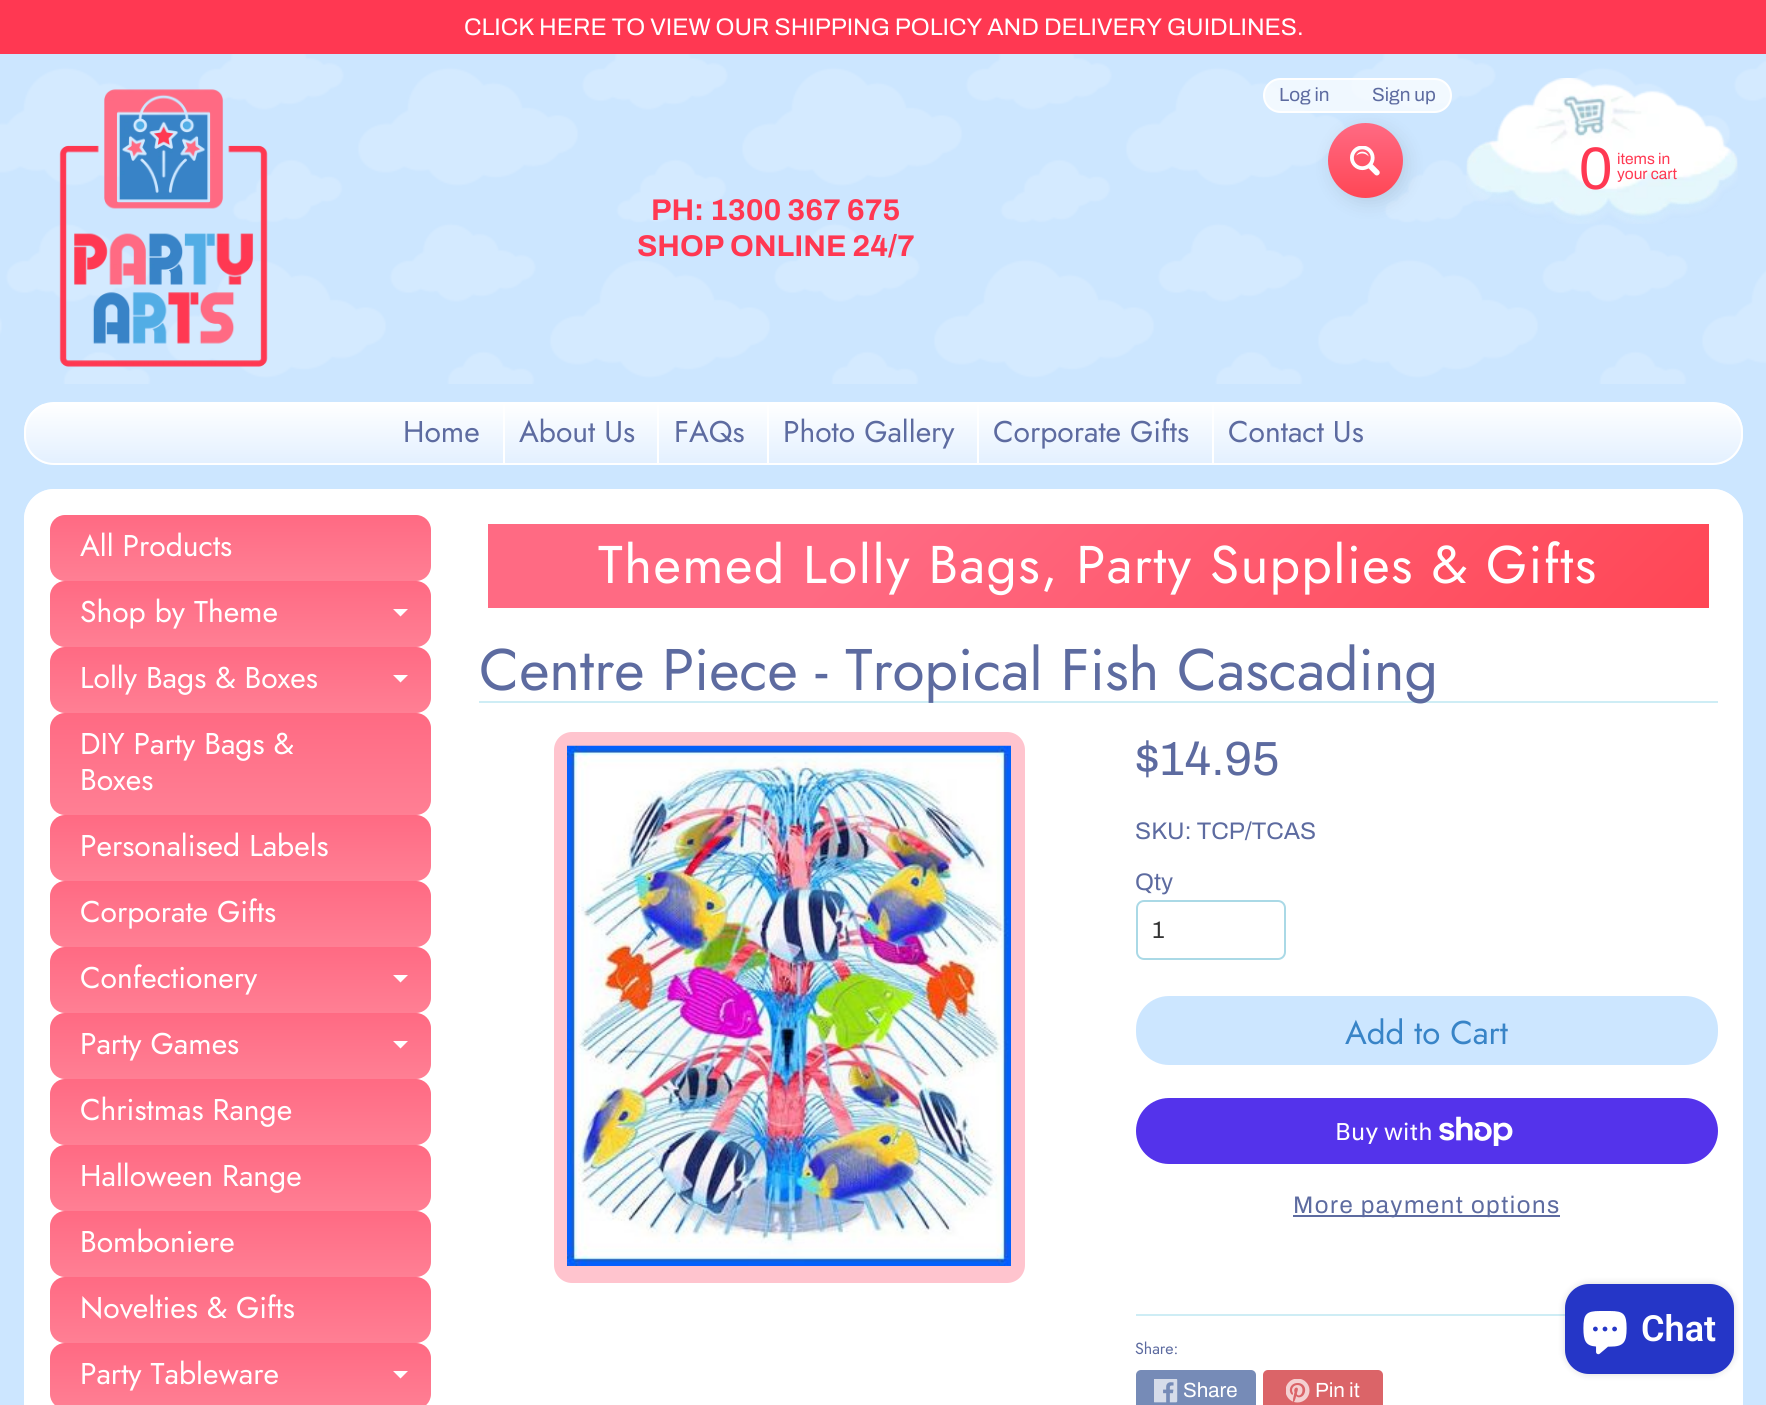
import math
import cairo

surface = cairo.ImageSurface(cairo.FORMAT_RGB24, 1766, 1405)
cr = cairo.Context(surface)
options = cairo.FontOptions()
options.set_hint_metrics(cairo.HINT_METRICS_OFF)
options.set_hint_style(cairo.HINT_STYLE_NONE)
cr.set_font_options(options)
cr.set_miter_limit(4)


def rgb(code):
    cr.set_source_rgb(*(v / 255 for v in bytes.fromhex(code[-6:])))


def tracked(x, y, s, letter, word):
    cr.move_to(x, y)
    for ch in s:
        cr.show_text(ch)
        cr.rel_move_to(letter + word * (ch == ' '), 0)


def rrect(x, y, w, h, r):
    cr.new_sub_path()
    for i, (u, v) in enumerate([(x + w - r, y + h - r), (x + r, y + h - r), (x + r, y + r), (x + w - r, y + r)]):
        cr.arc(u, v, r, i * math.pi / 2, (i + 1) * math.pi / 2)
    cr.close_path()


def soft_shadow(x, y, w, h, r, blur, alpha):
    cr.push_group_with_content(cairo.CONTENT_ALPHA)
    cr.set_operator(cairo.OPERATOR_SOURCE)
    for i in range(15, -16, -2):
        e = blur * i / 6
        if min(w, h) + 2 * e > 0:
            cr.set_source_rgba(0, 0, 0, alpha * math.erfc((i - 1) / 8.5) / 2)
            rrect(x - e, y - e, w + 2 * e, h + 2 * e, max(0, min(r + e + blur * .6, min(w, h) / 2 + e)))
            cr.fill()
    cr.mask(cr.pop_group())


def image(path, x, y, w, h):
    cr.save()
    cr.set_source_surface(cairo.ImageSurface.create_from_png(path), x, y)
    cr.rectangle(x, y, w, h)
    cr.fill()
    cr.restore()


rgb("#cce6ff")
cr.paint()
image("img/1.png", 0, 54, 1766, 330)
rgb("#ff3852")
cr.rectangle(0, 0, 1766, 54)
cr.fill()
rgb("#000000")
soft_shadow(1332, 128, 75, 75, 37.5, 9, 0.1)
cr.set_source_rgba(1, 1, 1, 0.7)
rrect(1264, 79, 187, 33, 16.5)
cr.fill_preserve()
rgb("#ffffff")
cr.stroke()
gradient = cairo.LinearGradient(1365, 123, 1365, 198)
gradient.add_color_stop_rgba(0, 1, 0.416, 0.514, 1)
gradient.add_color_stop_rgba(1, 1, 0.275, 0.333, 1)
cr.set_source(gradient)
cr.arc(1365.5, 160.5, 37.5, 0, 2 * math.pi)
cr.fill()
image("img/2.png", 1350, 146, 30, 30)
image("img/3.png", 1466, 78, 272, 146)
image("img/4.png", 59, 89, 209, 278)
cr.save()
rrect(24, 402, 1719, 63, 30)
cr.clip()
gradient = cairo.LinearGradient(884, 403, 884, 464)
gradient.add_color_stop_rgba(0, 1, 1, 1, 1)
gradient.add_color_stop_rgba(1, 0.89, 0.941, 1, 1)
cr.set_source(gradient)
cr.rectangle(24, 404, 1719, 60)
cr.fill()
cr.restore()
rrect(25, 403, 1717, 61, 29)
rgb("#ffffff")
cr.stroke()
for x, y, w, h, color in [
    (503, 404, 2, 60, "#ffffff"),
    (657, 404, 2, 60, "#ffffff"),
    (767, 404, 2, 60, "#ffffff"),
    (977, 404, 2, 60, "#ffffff"),
    (1212, 404, 2, 60, "#ffffff"),
]:
    rgb(color)
    cr.rectangle(x, y, w, h)
    cr.fill()
rrect(24, 489, 1719, 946, 30)
cr.fill()
rrect(25, 490, 1717, 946, 29)
cr.set_source_rgba(1, 1, 1, 0.7)
cr.stroke()
gradient = cairo.LinearGradient(240, 515, 240, 581)
gradient.add_color_stop_rgba(0, 1, 0.416, 0.514, 1)
gradient.add_color_stop_rgba(1, 1, 0.498, 0.58, 1)
cr.set_source(gradient)
rrect(50, 515, 381, 66, 15)
cr.fill()
gradient = cairo.LinearGradient(240, 581, 240, 647)
gradient.add_color_stop_rgba(0, 1, 0.416, 0.514, 1)
gradient.add_color_stop_rgba(1, 1, 0.498, 0.58, 1)
cr.set_source(gradient)
rrect(50, 581, 381, 66, 15)
cr.fill()
rgb("#ffffff")
cr.new_path()
cr.move_to(393, 609)
cr.line_to(408, 609)
cr.line_to(400.5, 616.5)
cr.close_path()
cr.fill()
gradient = cairo.LinearGradient(240, 647, 240, 713)
gradient.add_color_stop_rgba(0, 1, 0.416, 0.514, 1)
gradient.add_color_stop_rgba(1, 1, 0.498, 0.58, 1)
cr.set_source(gradient)
rrect(50, 647, 381, 66, 15)
cr.fill()
rgb("#ffffff")
cr.new_path()
cr.move_to(393, 675)
cr.line_to(408, 675)
cr.line_to(400.5, 682.5)
cr.close_path()
cr.fill()
gradient = cairo.LinearGradient(240, 713, 240, 815)
gradient.add_color_stop_rgba(0, 1, 0.416, 0.514, 1)
gradient.add_color_stop_rgba(1, 1, 0.498, 0.58, 1)
cr.set_source(gradient)
rrect(50, 713, 381, 102, 15)
cr.fill()
gradient = cairo.LinearGradient(240, 815, 240, 881)
gradient.add_color_stop_rgba(0, 1, 0.416, 0.514, 1)
gradient.add_color_stop_rgba(1, 1, 0.498, 0.58, 1)
cr.set_source(gradient)
rrect(50, 815, 381, 66, 15)
cr.fill()
gradient = cairo.LinearGradient(240, 881, 240, 947)
gradient.add_color_stop_rgba(0, 1, 0.416, 0.514, 1)
gradient.add_color_stop_rgba(1, 1, 0.498, 0.58, 1)
cr.set_source(gradient)
rrect(50, 881, 381, 66, 15)
cr.fill()
gradient = cairo.LinearGradient(240, 947, 240, 1013)
gradient.add_color_stop_rgba(0, 1, 0.416, 0.514, 1)
gradient.add_color_stop_rgba(1, 1, 0.498, 0.58, 1)
cr.set_source(gradient)
rrect(50, 947, 381, 66, 15)
cr.fill()
rgb("#ffffff")
cr.new_path()
cr.move_to(393, 975)
cr.line_to(408, 975)
cr.line_to(400.5, 982.5)
cr.close_path()
cr.fill()
gradient = cairo.LinearGradient(240, 1013, 240, 1079)
gradient.add_color_stop_rgba(0, 1, 0.416, 0.514, 1)
gradient.add_color_stop_rgba(1, 1, 0.498, 0.58, 1)
cr.set_source(gradient)
rrect(50, 1013, 381, 66, 15)
cr.fill()
rgb("#ffffff")
cr.new_path()
cr.move_to(393, 1041)
cr.line_to(408, 1041)
cr.line_to(400.5, 1048.5)
cr.close_path()
cr.fill()
gradient = cairo.LinearGradient(240, 1079, 240, 1145)
gradient.add_color_stop_rgba(0, 1, 0.416, 0.514, 1)
gradient.add_color_stop_rgba(1, 1, 0.498, 0.58, 1)
cr.set_source(gradient)
rrect(50, 1079, 381, 66, 15)
cr.fill()
gradient = cairo.LinearGradient(240, 1145, 240, 1211)
gradient.add_color_stop_rgba(0, 1, 0.416, 0.514, 1)
gradient.add_color_stop_rgba(1, 1, 0.498, 0.58, 1)
cr.set_source(gradient)
rrect(50, 1145, 381, 66, 15)
cr.fill()
gradient = cairo.LinearGradient(240, 1211, 240, 1277)
gradient.add_color_stop_rgba(0, 1, 0.416, 0.514, 1)
gradient.add_color_stop_rgba(1, 1, 0.498, 0.58, 1)
cr.set_source(gradient)
rrect(50, 1211, 381, 66, 15)
cr.fill()
gradient = cairo.LinearGradient(240, 1277, 240, 1343)
gradient.add_color_stop_rgba(0, 1, 0.416, 0.514, 1)
gradient.add_color_stop_rgba(1, 1, 0.498, 0.58, 1)
cr.set_source(gradient)
rrect(50, 1277, 381, 66, 15)
cr.fill()
gradient = cairo.LinearGradient(240, 1343, 240, 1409)
gradient.add_color_stop_rgba(0, 1, 0.416, 0.514, 1)
gradient.add_color_stop_rgba(1, 1, 0.498, 0.58, 1)
cr.set_source(gradient)
rrect(50, 1343, 381, 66, 15)
cr.fill()
rgb("#ffffff")
cr.new_path()
cr.move_to(393, 1371)
cr.line_to(408, 1371)
cr.line_to(400.5, 1378.5)
cr.close_path()
cr.fill()
gradient = cairo.LinearGradient(772, 239, 1424, 892)
gradient.add_color_stop_rgba(0.3, 1, 0.416, 0.514, 1)
gradient.add_color_stop_rgba(1, 1, 0.275, 0.333, 1)
cr.set_source(gradient)
cr.rectangle(488, 524, 1221, 84)
cr.fill()
rgb("#ceedf5")
cr.rectangle(479, 701, 1239, 2)
cr.fill()
rgb("#ffc4ce")
rrect(554, 732, 471, 551, 18)
cr.fill()
image("img/5.png", 567, 745, 444, 521)
rrect(1137, 901, 148, 58, 7)
rgb("#aad9e6")
cr.stroke()
rgb("#cce6ff")
rrect(1136, 996, 582, 69, 33)
cr.fill()
rgb("#5433eb")
rrect(1136, 1098, 582, 66, 33)
cr.fill()
image("img/6.png", 1439, 1116, 74, 30)
rgb("#5d6ba0")
cr.rectangle(1293, 1215, 267, 2)
cr.fill()
rgb("#ceedf5")
cr.rectangle(1136, 1314, 429, 2)
cr.fill()
rgb("#768bb7")
rrect(1136, 1370, 120, 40, 5)
cr.fill()
image("img/7.png", 1154, 1379, 24, 24)
rgb("#db6468")
rrect(1263, 1370, 120, 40, 5)
cr.fill()
image("img/8.png", 1286, 1379, 24, 24)
rgb("#000000")
soft_shadow(1565, 1284, 169, 90, 24, 4, 0.15)
rgb("#2536c7")
rrect(1565, 1284, 169, 90, 24)
cr.fill()
image("img/9.png", 1583, 1311, 44, 44)
cr.select_font_face("Archivo")
cr.set_font_size(24)
rgb("#ffffff")
cr.move_to(464, 35)
cr.show_text("CLICK HERE TO VIEW OUR SHIPPING POLICY AND DELIVERY GUIDLINES.")
cr.set_font_size(19)
rgb("#5d6ba0")
cr.move_to(1279, 101)
cr.show_text("Log in")
cr.move_to(1372, 101)
cr.show_text("Sign up")
cr.select_font_face("Liberation Sans")
cr.set_font_size(60)
rgb("#ff3852")
cr.move_to(1579, 189)
cr.show_text("0")
cr.select_font_face("Archivo")
cr.set_font_size(15.5)
cr.move_to(1617, 164)
cr.show_text("items in")
cr.move_to(1617, 179)
cr.show_text("your cart")
cr.select_font_face("Archivo", cairo.FONT_SLANT_NORMAL, cairo.FONT_WEIGHT_BOLD)
cr.set_font_size(30)
cr.move_to(651, 220)
cr.show_text("PH: 1300 367 675")
cr.move_to(637, 256)
cr.show_text("SHOP ONLINE 24/7")
cr.select_font_face("Jost")
rgb("#5d6ba0")
for x, y, s in [
    (403, 442, "Home"),
    (519, 442, "About Us"),
    (674, 442, "FAQs"),
    (783, 442, "Photo Gallery"),
    (993, 442, "Corporate Gifts"),
    (1228, 442, "Contact Us"),
]:
    cr.move_to(x, y)
    cr.show_text(s)
rgb("#ffffff")
for x, y, s in [
    (80, 556, "All Products"),
    (80, 622, "Shop by Theme"),
    (80, 688, "Lolly Bags & Boxes"),
    (80, 754, "DIY Party Bags &"),
    (80, 790, "Boxes"),
    (80, 856, "Personalised Labels"),
    (80, 922, "Corporate Gifts"),
    (80, 988, "Confectionery"),
    (80, 1054, "Party Games"),
    (80, 1120, "Christmas Range"),
    (80, 1186, "Halloween Range"),
    (80, 1252, "Bomboniere"),
    (80, 1318, "Novelties & Gifts"),
    (80, 1384, "Party Tableware"),
]:
    cr.move_to(x, y)
    cr.show_text(s)
cr.set_font_size(53)
tracked(598, 583, "Themed Lolly Bags, Party Supplies & Gifts", 1.5, 0)
cr.set_font_size(58.6)
rgb("#5d6ba0")
cr.move_to(479, 690)
cr.show_text("Centre Piece - Tropical Fish Cascading")
cr.select_font_face("Archivo")
cr.set_font_size(48)
cr.move_to(1135, 775)
cr.show_text("$14.95")
cr.set_font_size(24)
cr.move_to(1135, 839)
cr.show_text("SKU: TCP/TCAS")
cr.move_to(1135, 890)
cr.show_text("Qty")
rgb("#333333")
cr.move_to(1152, 938)
cr.show_text("1")
cr.select_font_face("Jost")
cr.set_font_size(33)
rgb("#3884c7")
cr.move_to(1345, 1044)
cr.show_text("Add to Cart")
cr.select_font_face("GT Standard")
cr.set_font_size(24)
rgb("#ffffff")
cr.move_to(1335, 1140)
cr.show_text("Buy with")
cr.select_font_face("Archivo")
rgb("#5d6ba0")
tracked(1293, 1213, "More payment options", 1.5, 0)
cr.select_font_face("Jost")
cr.set_font_size(16)
cr.move_to(1135, 1354)
cr.show_text("Share:")
cr.select_font_face("Archivo")
cr.set_font_size(20.5)
rgb("#ffffff")
cr.move_to(1183, 1397)
cr.show_text("Share")
cr.move_to(1315, 1397)
cr.show_text("Pin it")
cr.select_font_face("Roboto SemiBold")
cr.set_font_size(36)
cr.move_to(1641, 1341)
cr.show_text("Chat")
surface.write_to_png("page.png")
